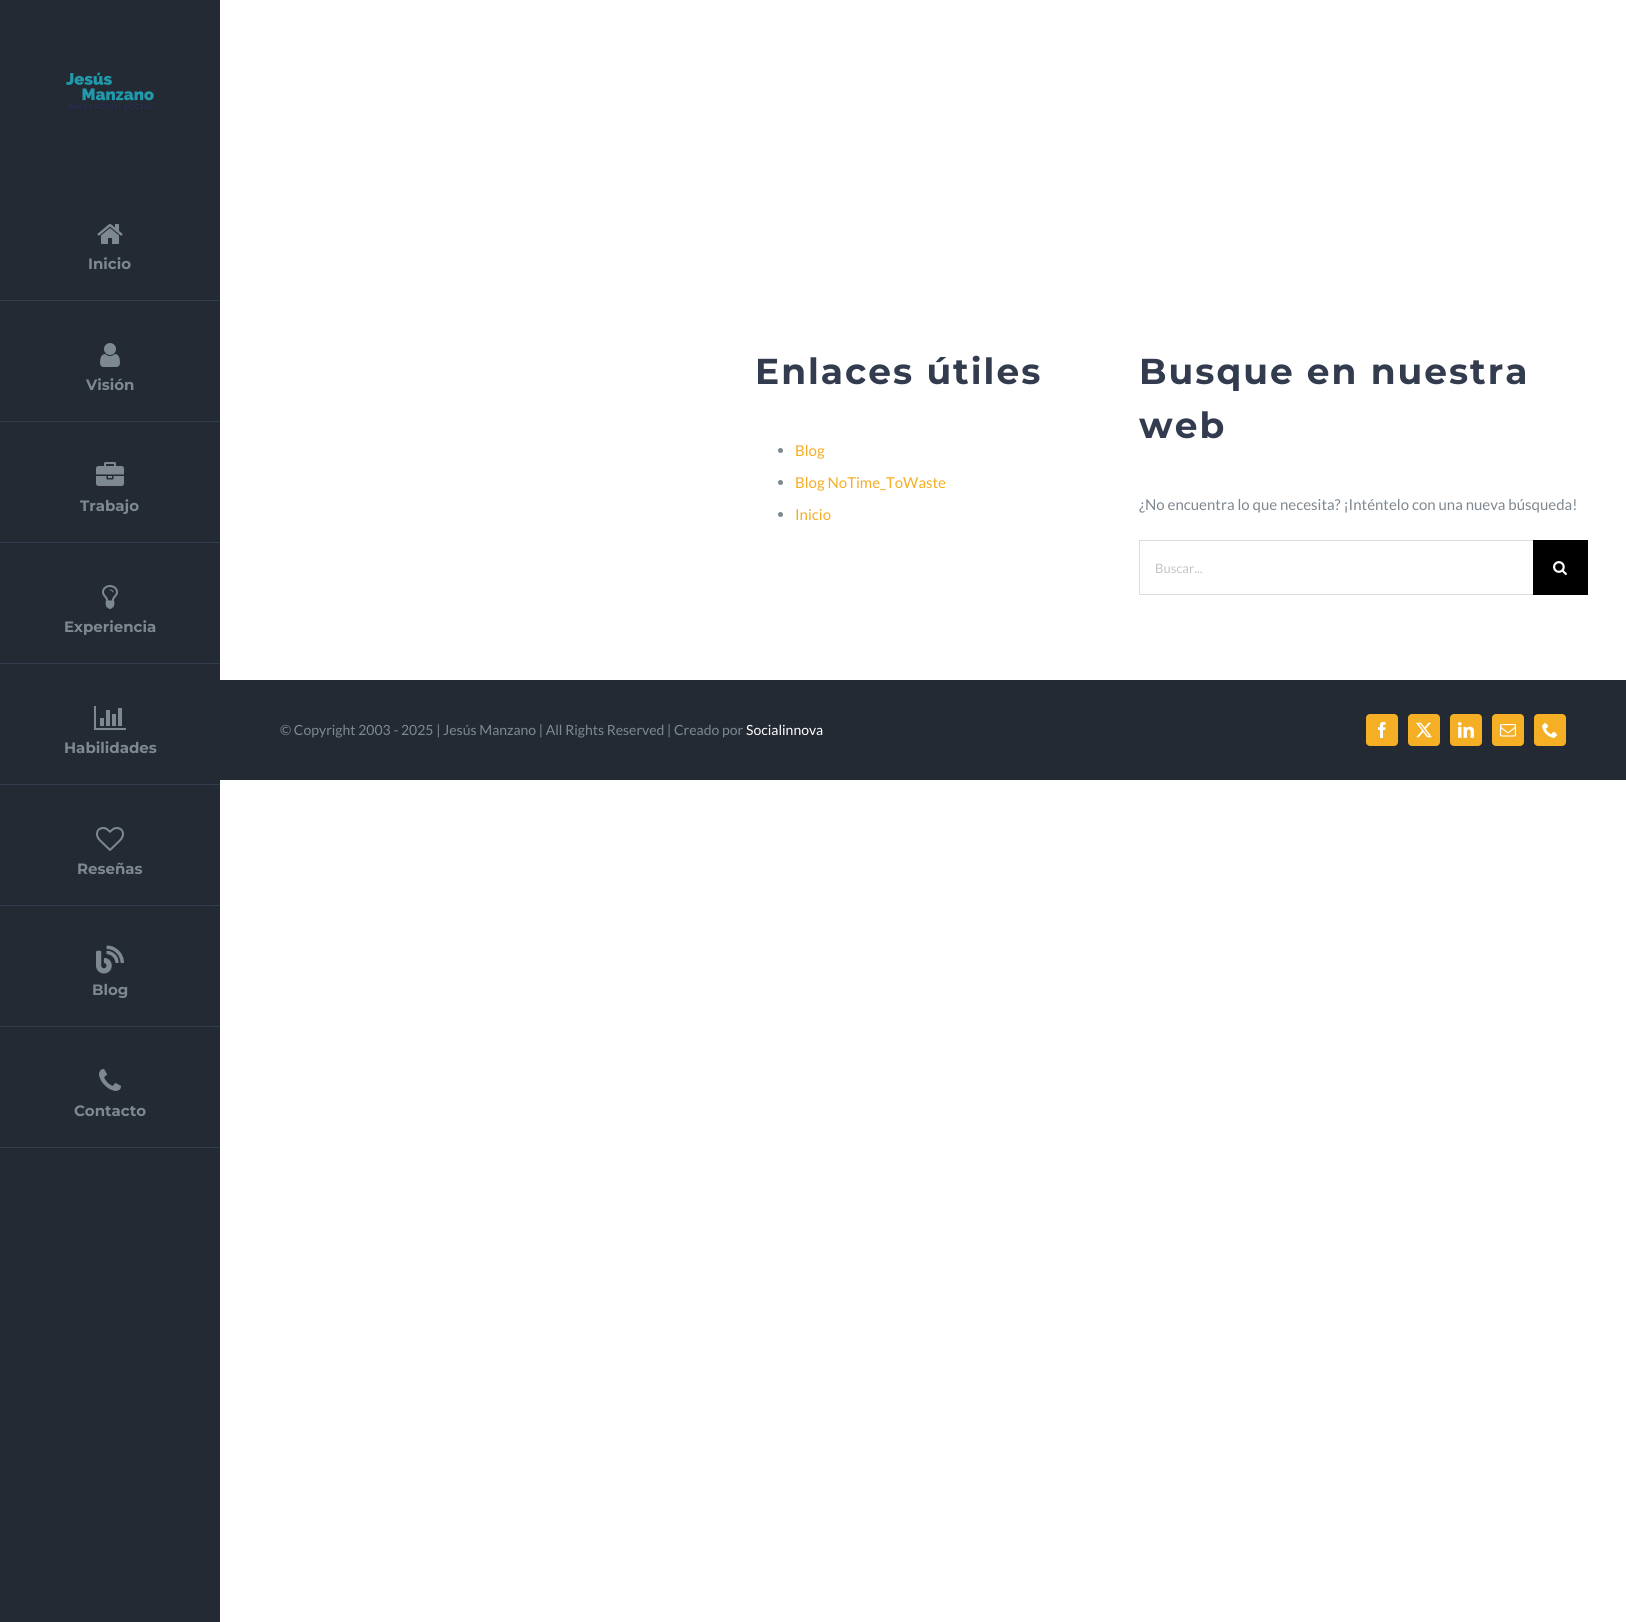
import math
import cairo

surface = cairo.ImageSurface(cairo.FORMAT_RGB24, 1626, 1622)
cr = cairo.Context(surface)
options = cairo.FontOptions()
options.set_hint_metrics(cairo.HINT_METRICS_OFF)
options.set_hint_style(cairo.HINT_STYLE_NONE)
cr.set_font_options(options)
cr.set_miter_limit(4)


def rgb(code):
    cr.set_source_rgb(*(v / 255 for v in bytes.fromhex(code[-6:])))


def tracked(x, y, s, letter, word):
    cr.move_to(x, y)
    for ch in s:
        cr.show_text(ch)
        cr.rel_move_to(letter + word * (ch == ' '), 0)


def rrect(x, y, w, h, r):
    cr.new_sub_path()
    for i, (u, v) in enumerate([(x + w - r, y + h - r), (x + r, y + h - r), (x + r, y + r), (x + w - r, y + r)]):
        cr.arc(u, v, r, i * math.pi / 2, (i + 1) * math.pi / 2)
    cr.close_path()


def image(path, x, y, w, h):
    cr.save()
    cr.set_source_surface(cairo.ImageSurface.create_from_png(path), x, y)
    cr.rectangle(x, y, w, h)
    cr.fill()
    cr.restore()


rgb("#ffffff")
cr.paint()
rgb("#232a34")
cr.rectangle(0, 0, 220, 1622)
cr.fill()
image("img/1.png", 66, 72, 88, 37)
image("img/2.png", 97, 224, 26, 20)
rgb("#333c4e")
cr.rectangle(0, 300, 220, 1)
cr.fill()
image("img/3.png", 100, 343, 20, 24)
cr.rectangle(0, 421, 220, 1)
cr.fill()
image("img/4.png", 96, 462, 28, 24)
cr.rectangle(0, 542, 220, 1)
cr.fill()
image("img/5.png", 102, 585, 16, 24)
cr.rectangle(0, 663, 220, 1)
cr.fill()
image("img/6.png", 94, 706, 32, 24)
cr.rectangle(0, 784, 220, 1)
cr.fill()
image("img/7.png", 96, 827, 28, 24)
cr.rectangle(0, 905, 220, 1)
cr.fill()
image("img/8.png", 96, 945, 28, 29)
cr.rectangle(0, 1026, 220, 1)
cr.fill()
image("img/9.png", 99, 1069, 22, 22)
cr.rectangle(0, 1147, 220, 1)
cr.fill()
rgb("#7e8890")
cr.arc(780.5, 450.5, 2.5, 0, 2 * math.pi)
cr.fill()
cr.arc(780.5, 482.5, 2.5, 0, 2 * math.pi)
cr.fill()
cr.arc(780.5, 514.5, 2.5, 0, 2 * math.pi)
cr.fill()
for x, y, w, h, color in [
    (1139, 540, 394, 1, "#dddddd"),
    (1139, 594, 394, 1, "#dddddd"),
    (1139, 540, 1, 55, "#dddddd"),
    (1533, 540, 55, 55, "#000000"),
]:
    rgb(color)
    cr.rectangle(x, y, w, h)
    cr.fill()
image("img/10.png", 1553, 561, 14, 14)
rgb("#232a34")
cr.rectangle(220, 680, 1406, 100)
cr.fill()
rgb("#f5af24")
rrect(1366, 714, 32, 32, 4)
cr.fill()
image("img/11.png", 1378, 722, 8, 16)
rrect(1408, 714, 32, 32, 4)
cr.fill()
image("img/12.png", 1416, 722, 16, 16)
rrect(1450, 714, 32, 32, 4)
cr.fill()
image("img/13.png", 1458, 722, 16, 16)
rrect(1492, 714, 32, 32, 4)
cr.fill()
image("img/14.png", 1500, 724, 16, 13)
rrect(1534, 714, 32, 32, 4)
cr.fill()
image("img/15.png", 1542, 723, 15, 15)
cr.select_font_face("Montserrat Thin")
cr.set_font_size(15)
rgb("#7e8890")
for x, y, s in [
    (88, 269, "Inicio"),
    (86, 390, "Visión"),
    (80, 511, "Trabajo"),
    (64, 632, "Experiencia"),
    (64, 753, "Habilidades"),
    (77, 874, "Reseñas"),
    (92, 995, "Blog"),
    (74, 1116, "Contacto"),
]:
    cr.move_to(x, y)
    cr.show_text(s)
cr.set_font_size(36)
rgb("#333c4e")
tracked(755, 384, "Enlaces útiles", 2, 0)
cr.select_font_face("Lato")
cr.set_font_size(15)
rgb("#f4ad24")
for x, y, s in [
    (795, 456, "Blog"),
    (795, 488, "Blog NoTime_ToWaste"),
    (795, 520, "Inicio"),
]:
    cr.move_to(x, y)
    cr.show_text(s)
cr.select_font_face("Montserrat Thin")
cr.set_font_size(36)
rgb("#333c4e")
tracked(1139, 384, "Busque en nuestra", 2, 0)
tracked(1139, 438, "web", 2, 0)
cr.select_font_face("Lato")
cr.set_font_size(15)
rgb("#7e8890")
cr.move_to(1139, 510)
cr.show_text("¿No encuentra lo que necesita? ¡Inténtelo con una nueva búsqueda!")
cr.set_font_size(13)
rgb("#c4c4c4")
cr.move_to(1155, 573)
cr.show_text("Buscar...")
cr.set_font_size(14)
rgb("#7e8890")
cr.move_to(280, 735)
cr.show_text("© Copyright 2003 - 2025 | Jesús Manzano | All Rights Reserved | Creado por")
rgb("#ffffff")
cr.move_to(746, 735)
cr.show_text("Socialinnova")
surface.write_to_png("page.png")
